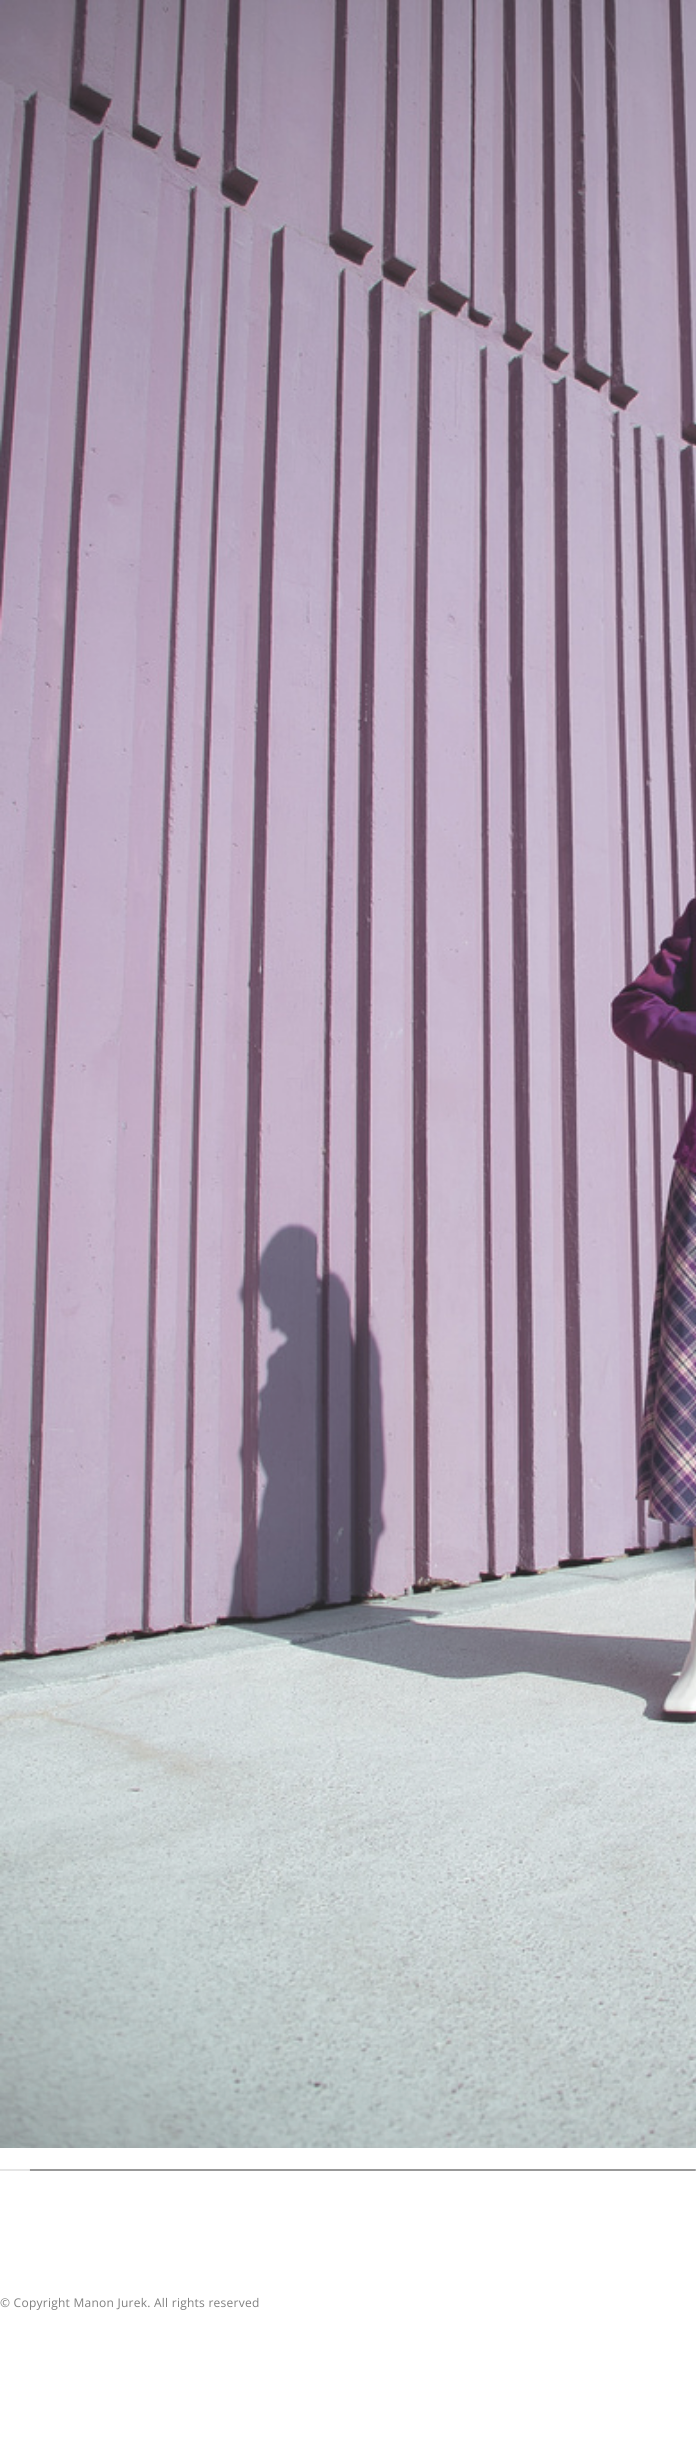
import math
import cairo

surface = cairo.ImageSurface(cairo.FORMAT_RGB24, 696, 2461)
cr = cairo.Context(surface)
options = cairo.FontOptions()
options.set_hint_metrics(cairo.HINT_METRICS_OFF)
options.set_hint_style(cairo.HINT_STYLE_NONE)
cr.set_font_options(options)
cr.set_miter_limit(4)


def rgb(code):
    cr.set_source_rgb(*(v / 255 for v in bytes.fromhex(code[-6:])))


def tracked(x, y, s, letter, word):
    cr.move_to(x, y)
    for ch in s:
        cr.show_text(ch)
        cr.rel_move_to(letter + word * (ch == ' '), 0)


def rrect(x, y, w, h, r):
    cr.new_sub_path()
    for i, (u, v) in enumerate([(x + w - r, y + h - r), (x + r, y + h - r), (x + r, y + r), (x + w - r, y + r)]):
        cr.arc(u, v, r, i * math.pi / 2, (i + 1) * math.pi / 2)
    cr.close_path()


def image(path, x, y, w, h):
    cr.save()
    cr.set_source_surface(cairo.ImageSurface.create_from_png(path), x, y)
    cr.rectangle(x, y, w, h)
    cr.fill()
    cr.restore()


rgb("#ffffff")
cr.paint()
image("img/1.png", 0, 0, 696, 2148)
rgb("#999999")
rrect(0, 2169, 696, 2, 1)
cr.fill()
cr.set_source_rgba(1, 1, 1, 0.75)
rrect(0, 2168, 30, 4, 2)
cr.fill()
cr.select_font_face("Open Sans")
cr.set_font_size(12)
rgb("#808080")
tracked(0, 2307, "© Copyright Manon Jurek. All rights reserved", 0.25, 0)
surface.write_to_png("page.png")
